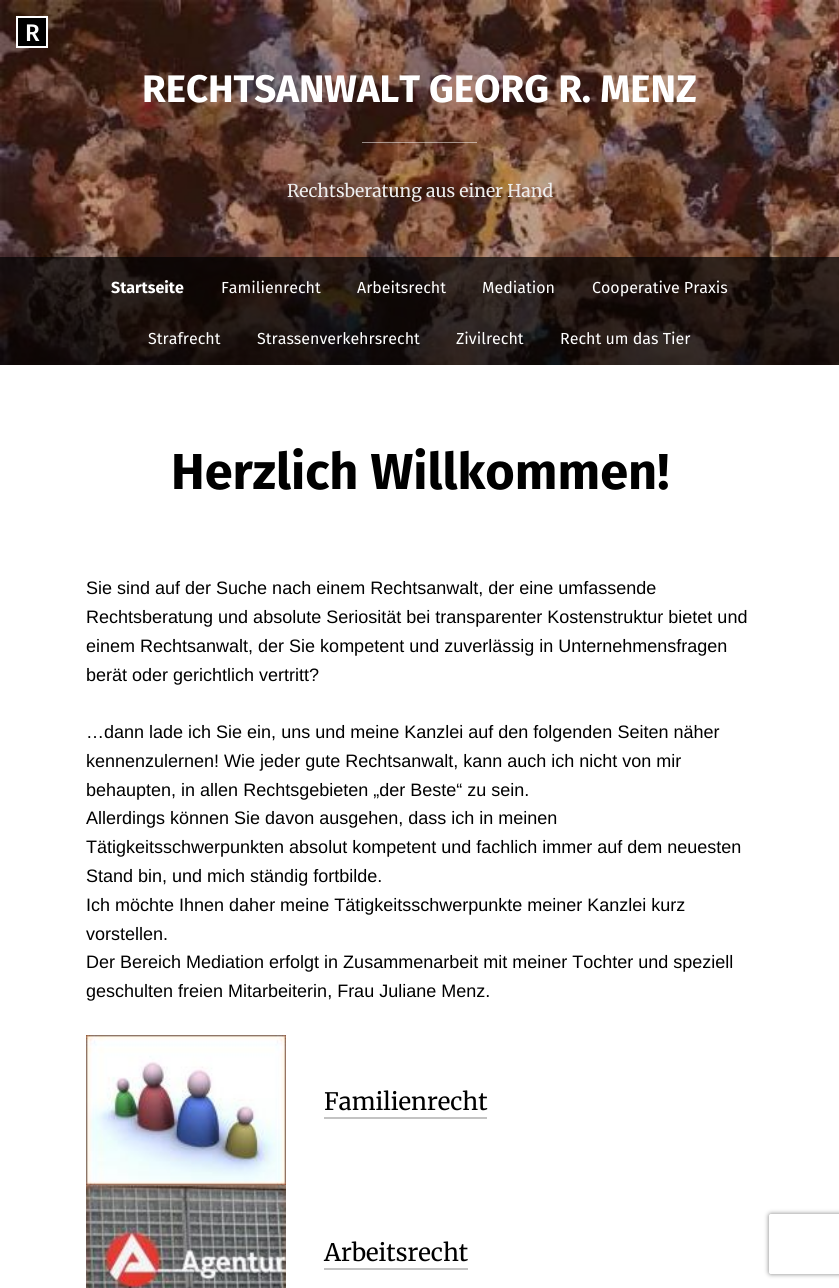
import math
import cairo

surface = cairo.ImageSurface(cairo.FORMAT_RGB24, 839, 1288)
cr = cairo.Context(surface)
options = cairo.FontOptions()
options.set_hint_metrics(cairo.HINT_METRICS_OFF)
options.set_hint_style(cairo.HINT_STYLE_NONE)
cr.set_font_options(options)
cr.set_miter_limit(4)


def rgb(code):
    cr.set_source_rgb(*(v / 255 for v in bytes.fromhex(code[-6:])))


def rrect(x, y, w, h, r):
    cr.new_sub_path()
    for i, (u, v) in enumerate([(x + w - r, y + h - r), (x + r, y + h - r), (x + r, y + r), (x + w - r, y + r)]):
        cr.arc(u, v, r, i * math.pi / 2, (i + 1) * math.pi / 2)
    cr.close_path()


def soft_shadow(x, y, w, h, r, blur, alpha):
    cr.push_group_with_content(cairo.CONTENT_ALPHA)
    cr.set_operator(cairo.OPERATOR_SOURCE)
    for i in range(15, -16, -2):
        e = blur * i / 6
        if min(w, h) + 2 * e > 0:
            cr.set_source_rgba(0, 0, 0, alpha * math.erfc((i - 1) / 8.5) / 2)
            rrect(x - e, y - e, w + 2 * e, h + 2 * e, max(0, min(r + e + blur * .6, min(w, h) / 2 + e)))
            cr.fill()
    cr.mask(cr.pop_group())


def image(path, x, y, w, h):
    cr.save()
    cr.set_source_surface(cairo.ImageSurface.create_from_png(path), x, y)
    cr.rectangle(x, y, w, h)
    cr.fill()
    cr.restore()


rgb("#ffffff")
cr.paint()
image("img/1.png", 0, 0, 839, 365)
rgb("#000000")
cr.rectangle(17, 17, 30, 30)
cr.fill_preserve()
rgb("#ffffff")
cr.stroke()
cr.set_source_rgba(1, 1, 1, 0.5)
cr.rectangle(362, 142, 115, 1)
cr.fill()
cr.set_source_rgba(0, 0, 0, 0.7)
cr.rectangle(0, 257, 839, 108)
cr.fill()
image("img/2.png", 86, 1035, 200, 150)
rgb("#c3c3c3")
cr.rectangle(324, 1117, 163, 2)
cr.fill()
image("img/3.png", 86, 1185, 200, 103)
cr.rectangle(324, 1268, 144, 2)
cr.fill()
cr.save()
cr.set_fill_rule(cairo.FILL_RULE_EVEN_ODD)
cr.new_path()
cr.move_to(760, 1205)
cr.line_to(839, 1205)
cr.line_to(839, 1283)
cr.line_to(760, 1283)
cr.close_path()
cr.move_to(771, 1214)
cr.line_to(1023, 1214)
cr.curve_to(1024, 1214, 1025, 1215, 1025, 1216)
cr.line_to(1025, 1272)
cr.curve_to(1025, 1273, 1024, 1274, 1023, 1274)
cr.line_to(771, 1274)
cr.curve_to(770, 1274, 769, 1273, 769, 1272)
cr.line_to(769, 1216)
cr.curve_to(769, 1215, 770, 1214, 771, 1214)
cr.close_path()
cr.clip()
rgb("#808080")
soft_shadow(769, 1214, 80, 60, 2, 2.5, 1)
cr.restore()
cr.select_font_face("Fira Sans Medium")
cr.set_font_size(24)
rgb("#ffffff")
cr.move_to(25, 41)
cr.show_text("R")
cr.select_font_face("Fira Sans", cairo.FONT_SLANT_NORMAL, cairo.FONT_WEIGHT_BOLD)
cr.set_font_size(38.4)
cr.move_to(142, 102)
cr.show_text("RECHTSANWALT GEORG R. MENZ")
cr.select_font_face("Merriweather")
cr.set_font_size(17.6)
rgb("#ededed")
cr.move_to(287, 197)
cr.show_text("Rechtsberatung aus einer Hand")
cr.select_font_face("Fira Sans", cairo.FONT_SLANT_NORMAL, cairo.FONT_WEIGHT_BOLD)
cr.set_font_size(16)
rgb("#ffffff")
cr.move_to(111, 293)
cr.show_text("Startseite")
cr.select_font_face("Fira Sans")
for x, y, s in [
    (221, 293, "Familienrecht"),
    (357, 293, "Arbeitsrecht"),
    (482, 293, "Mediation"),
    (592, 293, "Cooperative Praxis"),
    (148, 344, "Strafrecht"),
    (257, 344, "Strassenverkehrsrecht"),
    (456, 344, "Zivilrecht"),
    (560, 344, "Recht um das Tier"),
]:
    cr.move_to(x, y)
    cr.show_text(s)
cr.select_font_face("Fira Sans", cairo.FONT_SLANT_NORMAL, cairo.FONT_WEIGHT_BOLD)
cr.set_font_size(50.5)
rgb("#000000")
cr.move_to(171, 489)
cr.show_text("Herzlich Willkommen!")
cr.select_font_face("Liberation Sans")
cr.set_font_size(18)
for x, y, s in [
    (86, 594, "Sie sind auf der Suche nach einem Rechtsanwalt, der eine umfassende"),
    (86, 623, "Rechtsberatung und absolute Seriosität bei transparenter Kostenstruktur bietet und"),
    (86, 652, "einem Rechtsanwalt, der Sie kompetent und zuverlässig in Unternehmensfragen"),
    (86, 681, "berät oder gerichtlich vertritt?"),
    (86, 738, "…dann lade ich Sie ein, uns und meine Kanzlei auf den folgenden Seiten näher"),
    (86, 767, "kennenzulernen! Wie jeder gute Rechtsanwalt, kann auch ich nicht von mir"),
    (86, 796, "behaupten, in allen Rechtsgebieten „der Beste“ zu sein."),
    (86, 824, "Allerdings können Sie davon ausgehen, dass ich in meinen"),
    (86, 853, "Tätigkeitsschwerpunkten absolut kompetent und fachlich immer auf dem neuesten"),
    (86, 882, "Stand bin, und mich ständig fortbilde."),
    (86, 911, "Ich möchte Ihnen daher meine Tätigkeitsschwerpunkte meiner Kanzlei kurz"),
    (86, 940, "vorstellen."),
    (86, 968, "Der Bereich Mediation erfolgt in Zusammenarbeit mit meiner Tochter und speziell"),
    (86, 997, "geschulten freien Mitarbeiterin, Frau Juliane Menz."),
]:
    cr.move_to(x, y)
    cr.show_text(s)
cr.select_font_face("Merriweather")
cr.set_font_size(24)
cr.move_to(324, 1110)
cr.show_text("Familienrecht")
cr.move_to(324, 1261)
cr.show_text("Arbeitsrecht")
surface.write_to_png("page.png")
